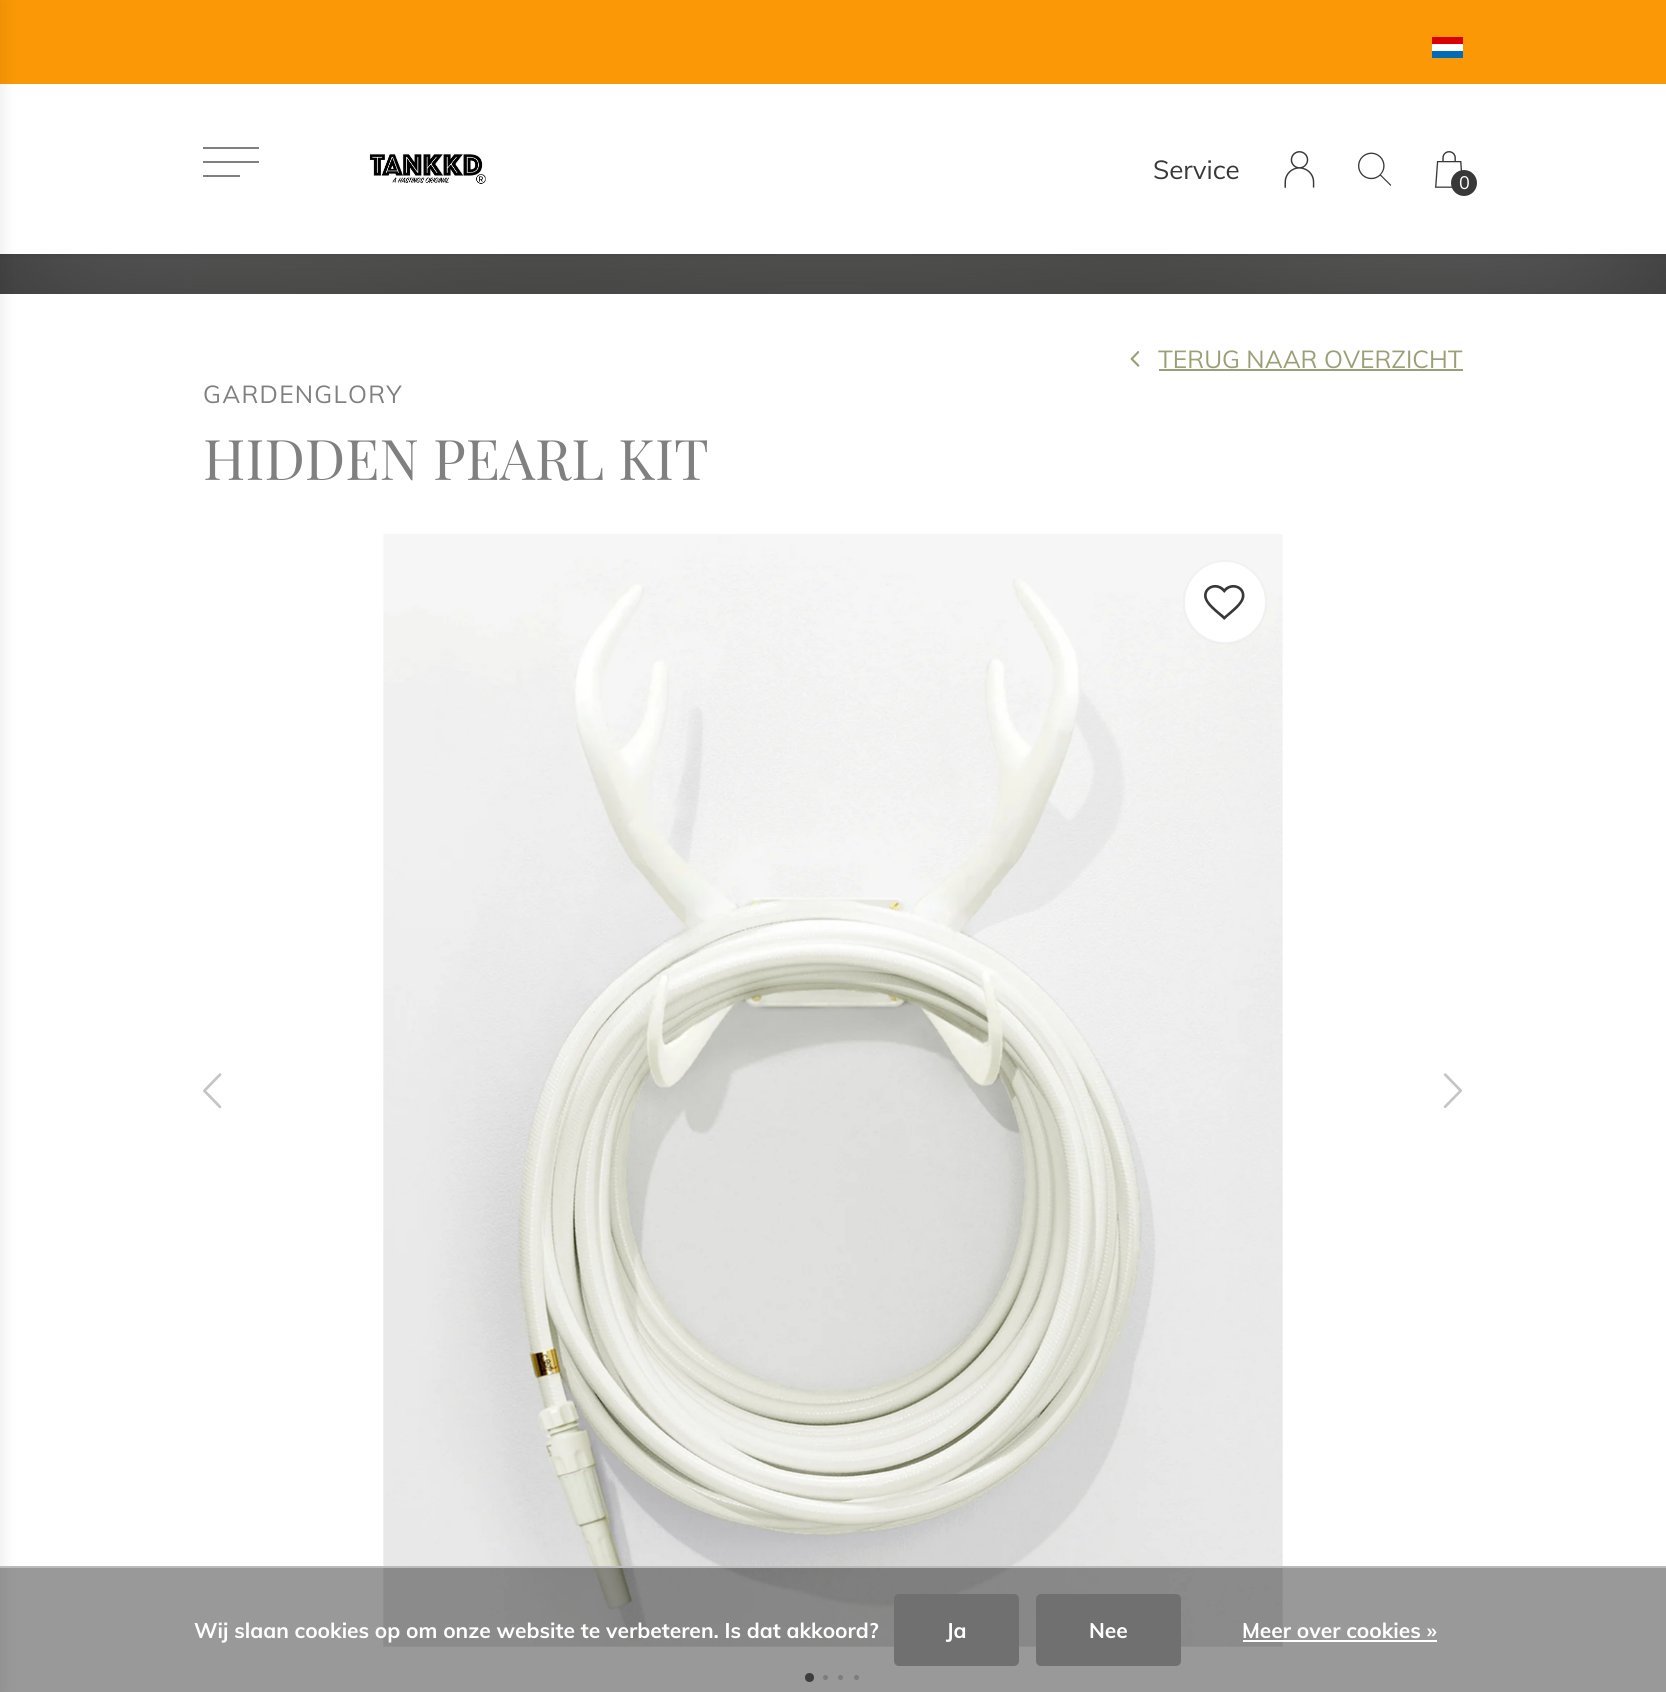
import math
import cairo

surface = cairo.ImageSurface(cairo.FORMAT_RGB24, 1666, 1692)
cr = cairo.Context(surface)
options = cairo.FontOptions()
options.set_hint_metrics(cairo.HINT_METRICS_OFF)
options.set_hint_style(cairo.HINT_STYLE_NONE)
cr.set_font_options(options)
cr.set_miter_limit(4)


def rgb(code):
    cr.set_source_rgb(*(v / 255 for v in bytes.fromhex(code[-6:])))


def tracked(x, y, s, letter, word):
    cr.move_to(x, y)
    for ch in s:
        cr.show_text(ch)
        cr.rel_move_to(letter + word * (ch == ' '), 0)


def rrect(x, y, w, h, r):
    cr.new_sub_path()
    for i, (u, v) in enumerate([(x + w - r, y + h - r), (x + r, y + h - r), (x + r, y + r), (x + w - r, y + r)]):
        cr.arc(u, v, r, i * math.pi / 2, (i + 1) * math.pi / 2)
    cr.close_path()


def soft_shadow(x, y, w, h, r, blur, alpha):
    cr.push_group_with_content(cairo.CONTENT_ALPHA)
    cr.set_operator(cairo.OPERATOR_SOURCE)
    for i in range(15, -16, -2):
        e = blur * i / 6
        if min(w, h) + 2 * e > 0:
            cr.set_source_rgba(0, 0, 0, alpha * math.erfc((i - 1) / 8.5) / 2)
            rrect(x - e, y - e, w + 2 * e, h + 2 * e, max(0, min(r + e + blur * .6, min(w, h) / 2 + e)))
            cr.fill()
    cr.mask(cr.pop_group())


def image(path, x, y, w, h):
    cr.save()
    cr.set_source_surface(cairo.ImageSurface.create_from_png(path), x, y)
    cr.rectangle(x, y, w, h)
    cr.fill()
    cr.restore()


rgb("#ffffff")
cr.paint()
rgb("#383838")
cr.rectangle(0, 254, 1666, 40)
cr.fill()
image("img/5.png", 0, 254, 1666, 40)
rgb("#000000")
soft_shadow(-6, 2, 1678, 254, 0, 2, 0.08)
rgb("#ffffff")
cr.rectangle(0, 84, 1666, 170)
cr.fill()
rgb("#fa9805")
cr.rectangle(0, 0, 1666, 84)
cr.fill()
rgb("#000000")
soft_shadow(-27, 0, 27, 1692, 0, 9, 0.1)
for x, y, w, h, color in [
    (1432, 37, 31, 7, "#db0000"),
    (1432, 44, 31, 7, "#ffffff"),
    (1432, 51, 31, 7, "#006bb9"),
]:
    rgb(color)
    cr.rectangle(x, y, w, h)
    cr.fill()
rgb("#808080")
cr.new_path()
cr.move_to(203, 147)
cr.line_to(259, 147)
cr.line_to(259, 149)
cr.line_to(203, 149)
cr.close_path()
cr.move_to(203, 161)
cr.line_to(259, 161)
cr.line_to(259, 163)
cr.line_to(203, 163)
cr.close_path()
cr.move_to(203, 175)
cr.line_to(240, 175)
cr.line_to(240, 177)
cr.line_to(203, 177)
cr.close_path()
cr.fill()
image("img/1.png", 369, 153, 117, 31)
image("img/2.png", 1284, 151, 31, 37)
image("img/3.png", 1358, 152, 34, 34)
image("img/4.png", 1435, 151, 28, 37)
rgb("#383838")
cr.arc(1464, 183, 13, 0, 2 * math.pi)
cr.fill()
image("img/6.png", 1130, 351, 10, 16)
rgb("#9b9f76")
cr.rectangle(1159, 369, 304, 2)
cr.fill()
image("img/7.png", 383, 534, 900, 1113)
image("img/8.png", 203, 1073, 19, 36)
image("img/9.png", 1443, 1073, 19, 35)
rgb("#666666")
cr.arc(809.5, 1677.5, 4.5, 0, 2 * math.pi)
cr.fill()
rgb("#d0d0d0")
cr.arc(825.5, 1677.5, 2.5, 0, 2 * math.pi)
cr.fill()
cr.arc(840.5, 1677.5, 2.5, 0, 2 * math.pi)
cr.fill()
cr.arc(856.5, 1677.5, 2.5, 0, 2 * math.pi)
cr.fill()
cr.save()
rrect(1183, 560, 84, 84, 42)
cr.clip()
rgb("#000000")
soft_shadow(1183, 564, 84, 84, 42, 2, 0.1)
cr.restore()
cr.arc(1225, 602, 41, 0, 2 * math.pi)
rgb("#f2f2f2")
cr.stroke()
cr.save()
rrect(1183, 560, 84, 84, 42)
cr.clip()
rgb("#000000")
soft_shadow(1183, 564, 84, 84, 42, 2, 0.1)
cr.restore()
rgb("#ffffff")
cr.arc(1225, 602, 41, 0, 2 * math.pi)
cr.fill_preserve()
rgb("#f2f2f2")
cr.stroke()
image("img/10.png", 1204, 584, 41, 36)
cr.set_source_rgba(0, 0, 0, 0.4)
cr.rectangle(0, 1568, 1666, 124)
cr.fill()
rgb("#bbbbbb")
cr.rectangle(0, 1566, 1666, 2)
cr.fill()
rgb("#707070")
rrect(894, 1594, 125, 72, 5)
cr.fill()
rrect(1036, 1594, 145, 72, 5)
cr.fill()
rgb("#ffffff")
cr.rectangle(1243, 1640, 194, 2)
cr.fill()
cr.select_font_face("Muli")
cr.set_font_size(26)
rgb("#383838")
cr.move_to(1153, 179)
cr.show_text("Service")
cr.set_font_size(18)
rgb("#ffffff")
cr.move_to(1459, 189)
cr.show_text("0")
cr.set_font_size(24.5)
rgb("#9b9f76")
cr.move_to(1158, 368)
cr.show_text("TERUG NAAR OVERZICHT")
rgb("#808080")
tracked(203, 403, "GARDENGLORY", 1.25, 0)
cr.select_font_face("Playfair Display")
cr.set_font_size(56)
cr.move_to(203, 480)
cr.show_text("HIDDEN PEARL KIT")
cr.select_font_face("Muli", cairo.FONT_SLANT_NORMAL, cairo.FONT_WEIGHT_BOLD)
cr.set_font_size(21)
rgb("#ffffff")
for x, y, s in [
    (194, 1638, "Wij slaan cookies op om onze website te verbeteren. Is dat akkoord?"),
    (946, 1638, "Ja"),
    (1089, 1638, "Nee"),
    (1242, 1638, "Meer over cookies »"),
]:
    cr.move_to(x, y)
    cr.show_text(s)
surface.write_to_png("page.png")
